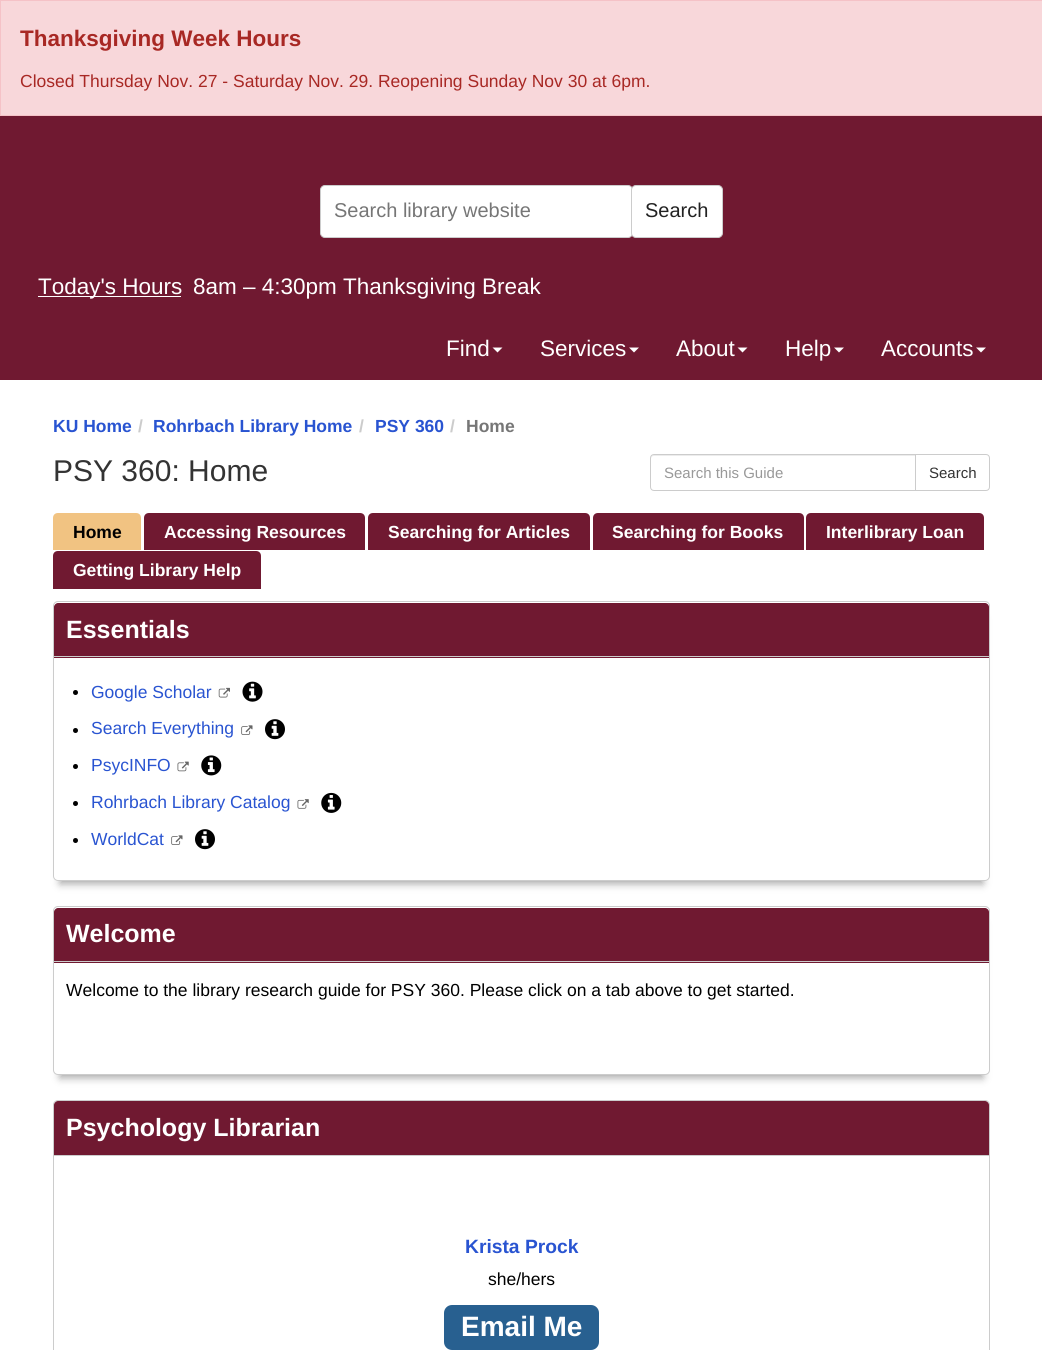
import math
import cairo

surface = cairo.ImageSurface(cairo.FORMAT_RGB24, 1042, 1350)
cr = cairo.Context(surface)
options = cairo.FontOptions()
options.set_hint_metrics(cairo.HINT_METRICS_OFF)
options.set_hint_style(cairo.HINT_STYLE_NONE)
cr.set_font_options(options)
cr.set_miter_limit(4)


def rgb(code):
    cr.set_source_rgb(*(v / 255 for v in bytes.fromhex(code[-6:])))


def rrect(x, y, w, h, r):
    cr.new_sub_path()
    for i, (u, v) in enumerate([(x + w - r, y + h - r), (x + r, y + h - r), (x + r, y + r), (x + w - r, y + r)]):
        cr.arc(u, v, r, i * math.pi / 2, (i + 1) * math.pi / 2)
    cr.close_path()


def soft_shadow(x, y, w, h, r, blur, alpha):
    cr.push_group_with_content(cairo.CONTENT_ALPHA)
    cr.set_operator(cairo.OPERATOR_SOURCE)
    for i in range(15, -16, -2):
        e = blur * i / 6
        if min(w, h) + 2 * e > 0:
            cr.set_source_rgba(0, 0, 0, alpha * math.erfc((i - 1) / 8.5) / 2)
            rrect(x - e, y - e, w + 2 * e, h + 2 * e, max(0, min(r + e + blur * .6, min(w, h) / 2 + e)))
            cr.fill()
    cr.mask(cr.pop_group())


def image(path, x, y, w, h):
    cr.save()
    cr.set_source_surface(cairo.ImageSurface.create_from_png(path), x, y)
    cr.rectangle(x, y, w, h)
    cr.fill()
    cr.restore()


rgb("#ffffff")
cr.paint()
rgb("#f8d7da")
cr.rectangle(0.5, 0.5, 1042, 115)
cr.fill_preserve()
rgb("#f5c2c7")
cr.set_line_width(1)
cr.stroke()
rgb("#701931")
cr.rectangle(0, 116, 1042, 264)
cr.fill()
rgb("#ffffff")
rrect(320.5, 185.5, 312, 52, 4.5)
cr.fill_preserve()
rgb("#cccccc")
cr.stroke()
rgb("#ffffff")
rrect(631.5, 185.5, 91, 52, 4.5)
cr.fill_preserve()
rgb("#cccccc")
cr.stroke()
rgb("#ffffff")
cr.rectangle(38, 296, 143, 1)
cr.fill()
cr.new_path()
cr.move_to(492.5, 347.5)
cr.line_to(502.5, 347.5)
cr.line_to(497.5, 352.5)
cr.close_path()
cr.fill()
cr.new_path()
cr.move_to(629, 347.5)
cr.line_to(639, 347.5)
cr.line_to(634, 352.5)
cr.close_path()
cr.fill()
cr.new_path()
cr.move_to(737.5, 347.5)
cr.line_to(747.5, 347.5)
cr.line_to(742.5, 352.5)
cr.close_path()
cr.fill()
cr.new_path()
cr.move_to(834, 347.5)
cr.line_to(844, 347.5)
cr.line_to(839, 352.5)
cr.close_path()
cr.fill()
cr.new_path()
cr.move_to(976, 347.5)
cr.line_to(986, 347.5)
cr.line_to(981, 352.5)
cr.close_path()
cr.fill()
rgb("#ececec")
cr.new_path()
cr.move_to(654, 456)
cr.line_to(915, 456)
cr.line_to(915, 455)
cr.line_to(654, 455)
cr.curve_to(652, 455, 651, 456, 651, 458)
cr.line_to(651, 459)
cr.curve_to(651, 457, 652, 456, 654, 456)
cr.close_path()
cr.fill()
cr.new_path()
cr.move_to(654, 454.5)
cr.line_to(915.5, 454.5)
cr.line_to(915.5, 490.5)
cr.line_to(654, 490.5)
cr.curve_to(652, 490.5, 650.5, 489, 650.5, 487)
cr.line_to(650.5, 458)
cr.curve_to(650.5, 456, 652, 454.5, 654, 454.5)
cr.close_path()
rgb("#cccccc")
cr.stroke()
rgb("#ffffff")
cr.new_path()
cr.move_to(915.5, 454.5)
cr.line_to(986, 454.5)
cr.curve_to(988, 454.5, 989.5, 456, 989.5, 458)
cr.line_to(989.5, 487)
cr.curve_to(989.5, 489, 988, 490.5, 986, 490.5)
cr.line_to(915.5, 490.5)
cr.close_path()
cr.fill_preserve()
rgb("#cccccc")
cr.stroke()
rgb("#f1c382")
cr.new_path()
cr.move_to(58, 513)
cr.line_to(136, 513)
cr.curve_to(139, 513, 141, 515, 141, 518)
cr.line_to(141, 550)
cr.line_to(53, 550)
cr.line_to(53, 518)
cr.curve_to(53, 515, 55, 513, 58, 513)
cr.close_path()
cr.fill()
rgb("#701931")
cr.new_path()
cr.move_to(149, 513)
cr.line_to(360, 513)
cr.curve_to(363, 513, 365, 515, 365, 518)
cr.line_to(365, 550)
cr.line_to(144, 550)
cr.line_to(144, 518)
cr.curve_to(144, 515, 146, 513, 149, 513)
cr.close_path()
cr.fill()
cr.new_path()
cr.move_to(373, 513)
cr.line_to(585, 513)
cr.curve_to(588, 513, 590, 515, 590, 518)
cr.line_to(590, 550)
cr.line_to(368, 550)
cr.line_to(368, 518)
cr.curve_to(368, 515, 370, 513, 373, 513)
cr.close_path()
cr.fill()
cr.new_path()
cr.move_to(598, 513)
cr.line_to(799, 513)
cr.curve_to(802, 513, 804, 515, 804, 518)
cr.line_to(804, 550)
cr.line_to(593, 550)
cr.line_to(593, 518)
cr.curve_to(593, 515, 595, 513, 598, 513)
cr.close_path()
cr.fill()
cr.new_path()
cr.move_to(811, 513)
cr.line_to(979, 513)
cr.curve_to(982, 513, 984, 515, 984, 518)
cr.line_to(984, 550)
cr.line_to(806, 550)
cr.line_to(806, 518)
cr.curve_to(806, 515, 808, 513, 811, 513)
cr.close_path()
cr.fill()
cr.new_path()
cr.move_to(58, 551)
cr.line_to(256, 551)
cr.curve_to(259, 551, 261, 553, 261, 556)
cr.line_to(261, 589)
cr.line_to(53, 589)
cr.line_to(53, 556)
cr.curve_to(53, 553, 55, 551, 58, 551)
cr.close_path()
cr.fill()
cr.save()
cr.set_fill_rule(cairo.FILL_RULE_EVEN_ODD)
cr.new_path()
cr.move_to(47, 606)
cr.line_to(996, 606)
cr.line_to(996, 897)
cr.line_to(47, 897)
cr.close_path()
cr.move_to(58, 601)
cr.line_to(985, 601)
cr.curve_to(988, 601, 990, 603, 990, 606)
cr.line_to(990, 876)
cr.curve_to(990, 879, 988, 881, 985, 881)
cr.line_to(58, 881)
cr.curve_to(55, 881, 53, 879, 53, 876)
cr.line_to(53, 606)
cr.curve_to(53, 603, 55, 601, 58, 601)
cr.close_path()
cr.clip()
rgb("#aaaaaa")
soft_shadow(60, 619, 923, 265, 0, 4, 1)
cr.restore()
rrect(53.5, 601.5, 936, 279, 4.5)
rgb("#cccccc")
cr.stroke()
rgb("#701931")
cr.new_path()
cr.move_to(58, 603)
cr.line_to(985, 603)
cr.curve_to(987, 603, 989, 605, 989, 607)
cr.line_to(989, 658)
cr.line_to(54, 658)
cr.line_to(54, 607)
cr.curve_to(54, 605, 56, 603, 58, 603)
cr.close_path()
cr.fill()
rgb("#cccccc")
cr.rectangle(54, 656, 935, 1)
cr.fill()
rgb("#000000")
cr.arc(75.5, 692.5, 2.5, 0, 2 * math.pi)
cr.fill()
image("img/1.png", 218, 687, 12, 11)
image("img/2.png", 242, 681, 21, 21)
cr.arc(75.5, 730.5, 2.5, 0, 2 * math.pi)
cr.fill()
image("img/3.png", 241, 725, 12, 10)
image("img/4.png", 265, 719, 20, 21)
cr.arc(75.5, 766.5, 2.5, 0, 2 * math.pi)
cr.fill()
image("img/5.png", 177, 761, 12, 11)
image("img/6.png", 201, 755, 21, 21)
cr.arc(75.5, 803.5, 2.5, 0, 2 * math.pi)
cr.fill()
image("img/7.png", 297, 799, 12, 10)
image("img/8.png", 321, 792, 21, 21)
cr.arc(75.5, 840.5, 2.5, 0, 2 * math.pi)
cr.fill()
image("img/3.png", 171, 835, 12, 10)
image("img/4.png", 195, 829, 20, 21)
rgb("#aaaaaa")
soft_shadow(60, 924, 923, 154, 0, 4, 1)
rgb("#ffffff")
rrect(53.5, 906.5, 936, 168, 4.5)
cr.fill_preserve()
rgb("#cccccc")
cr.stroke()
rgb("#701931")
cr.new_path()
cr.move_to(58, 908)
cr.line_to(985, 908)
cr.curve_to(987, 908, 989, 910, 989, 912)
cr.line_to(989, 963)
cr.line_to(54, 963)
cr.line_to(54, 912)
cr.curve_to(54, 910, 56, 908, 58, 908)
cr.close_path()
cr.fill()
rgb("#cccccc")
cr.rectangle(54, 961, 935, 1)
cr.fill()
rrect(53.5, 1100.5, 936, 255, 4.5)
cr.stroke()
rgb("#701931")
cr.new_path()
cr.move_to(58, 1101)
cr.line_to(985, 1101)
cr.curve_to(987, 1101, 989, 1103, 989, 1105)
cr.line_to(989, 1156)
cr.line_to(54, 1156)
cr.line_to(54, 1105)
cr.curve_to(54, 1103, 56, 1101, 58, 1101)
cr.close_path()
cr.fill()
rgb("#cccccc")
cr.rectangle(54, 1155, 935, 1)
cr.fill()
rgb("#286090")
rrect(444, 1305, 155, 45, 8)
cr.fill()
cr.select_font_face("Liberation Sans", cairo.FONT_SLANT_NORMAL, cairo.FONT_WEIGHT_BOLD)
cr.set_font_size(22.5)
rgb("#a82824")
cr.move_to(20, 46)
cr.show_text("Thanksgiving Week Hours")
cr.select_font_face("Liberation Sans")
cr.set_font_size(17.5)
cr.move_to(20, 87)
cr.show_text("Closed Thursday Nov. 27 - Saturday Nov. 29. Reopening Sunday Nov 30 at 6pm.")
cr.set_font_size(20)
rgb("#767676")
cr.move_to(334, 217)
cr.show_text("Search library website")
rgb("#222222")
cr.move_to(645, 217)
cr.show_text("Search")
cr.set_font_size(22.5)
rgb("#ffffff")
for x, y, s in [
    (38, 294, "Today's Hours"),
    (193, 294, "8am – 4:30pm Thanksgiving Break"),
    (446, 356, "Find"),
    (540, 356, "Services"),
    (676, 356, "About"),
    (785, 356, "Help"),
    (881, 356, "Accounts"),
]:
    cr.move_to(x, y)
    cr.show_text(s)
cr.select_font_face("Liberation Sans", cairo.FONT_SLANT_NORMAL, cairo.FONT_WEIGHT_BOLD)
cr.set_font_size(17.5)
rgb("#2954d1")
cr.move_to(53, 432)
cr.show_text("KU Home")
rgb("#cccccc")
cr.move_to(138, 432)
cr.show_text("/")
rgb("#2954d1")
cr.move_to(153, 432)
cr.show_text("Rohrbach Library Home")
rgb("#cccccc")
cr.move_to(359, 432)
cr.show_text("/")
rgb("#2954d1")
cr.move_to(375, 432)
cr.show_text("PSY 360")
rgb("#cccccc")
cr.move_to(450, 432)
cr.show_text("/")
rgb("#767676")
cr.move_to(466, 432)
cr.show_text("Home")
cr.select_font_face("Liberation Sans")
cr.set_font_size(30)
rgb("#333333")
cr.move_to(53, 481)
cr.show_text("PSY 360: Home")
cr.set_font_size(15)
rgb("#999999")
cr.move_to(664, 478)
cr.show_text("Search this Guide")
rgb("#333333")
cr.move_to(929, 478)
cr.show_text("Search")
cr.select_font_face("Liberation Sans", cairo.FONT_SLANT_NORMAL, cairo.FONT_WEIGHT_BOLD)
cr.set_font_size(17.5)
rgb("#000000")
cr.move_to(73, 538)
cr.show_text("Home")
rgb("#ffffff")
for x, y, s in [
    (164, 538, "Accessing Resources"),
    (388, 538, "Searching for Articles"),
    (612, 538, "Searching for Books"),
    (826, 538, "Interlibrary Loan"),
    (73, 576, "Getting Library Help"),
]:
    cr.move_to(x, y)
    cr.show_text(s)
cr.set_font_size(25)
cr.move_to(66, 638)
cr.show_text("Essentials")
cr.select_font_face("Liberation Sans")
cr.set_font_size(17.5)
rgb("#2954d1")
for x, y, s in [
    (91, 698, "Google Scholar"),
    (91, 734, "Search Everything"),
    (91, 771, "PsycINFO"),
    (91, 808, "Rohrbach Library Catalog"),
    (91, 845, "WorldCat"),
]:
    cr.move_to(x, y)
    cr.show_text(s)
cr.select_font_face("Liberation Sans", cairo.FONT_SLANT_NORMAL, cairo.FONT_WEIGHT_BOLD)
cr.set_font_size(25)
rgb("#ffffff")
cr.move_to(66, 942)
cr.show_text("Welcome")
cr.select_font_face("Liberation Sans")
cr.set_font_size(17.5)
rgb("#000000")
cr.move_to(66, 996)
cr.show_text("Welcome to the library research guide for PSY 360. Please click on a tab above to get started.")
cr.select_font_face("Liberation Sans", cairo.FONT_SLANT_NORMAL, cairo.FONT_WEIGHT_BOLD)
cr.set_font_size(25)
rgb("#ffffff")
cr.move_to(66, 1136)
cr.show_text("Psychology Librarian")
cr.set_font_size(19.25)
rgb("#2954d1")
cr.move_to(465, 1253)
cr.show_text("Krista Prock")
cr.select_font_face("Liberation Sans")
cr.set_font_size(17.5)
rgb("#000000")
cr.move_to(488, 1285)
cr.show_text("she/hers")
cr.select_font_face("Liberation Sans", cairo.FONT_SLANT_NORMAL, cairo.FONT_WEIGHT_BOLD)
cr.set_font_size(28)
rgb("#ffffff")
cr.move_to(461, 1336)
cr.show_text("Email Me")
surface.write_to_png("page.png")
